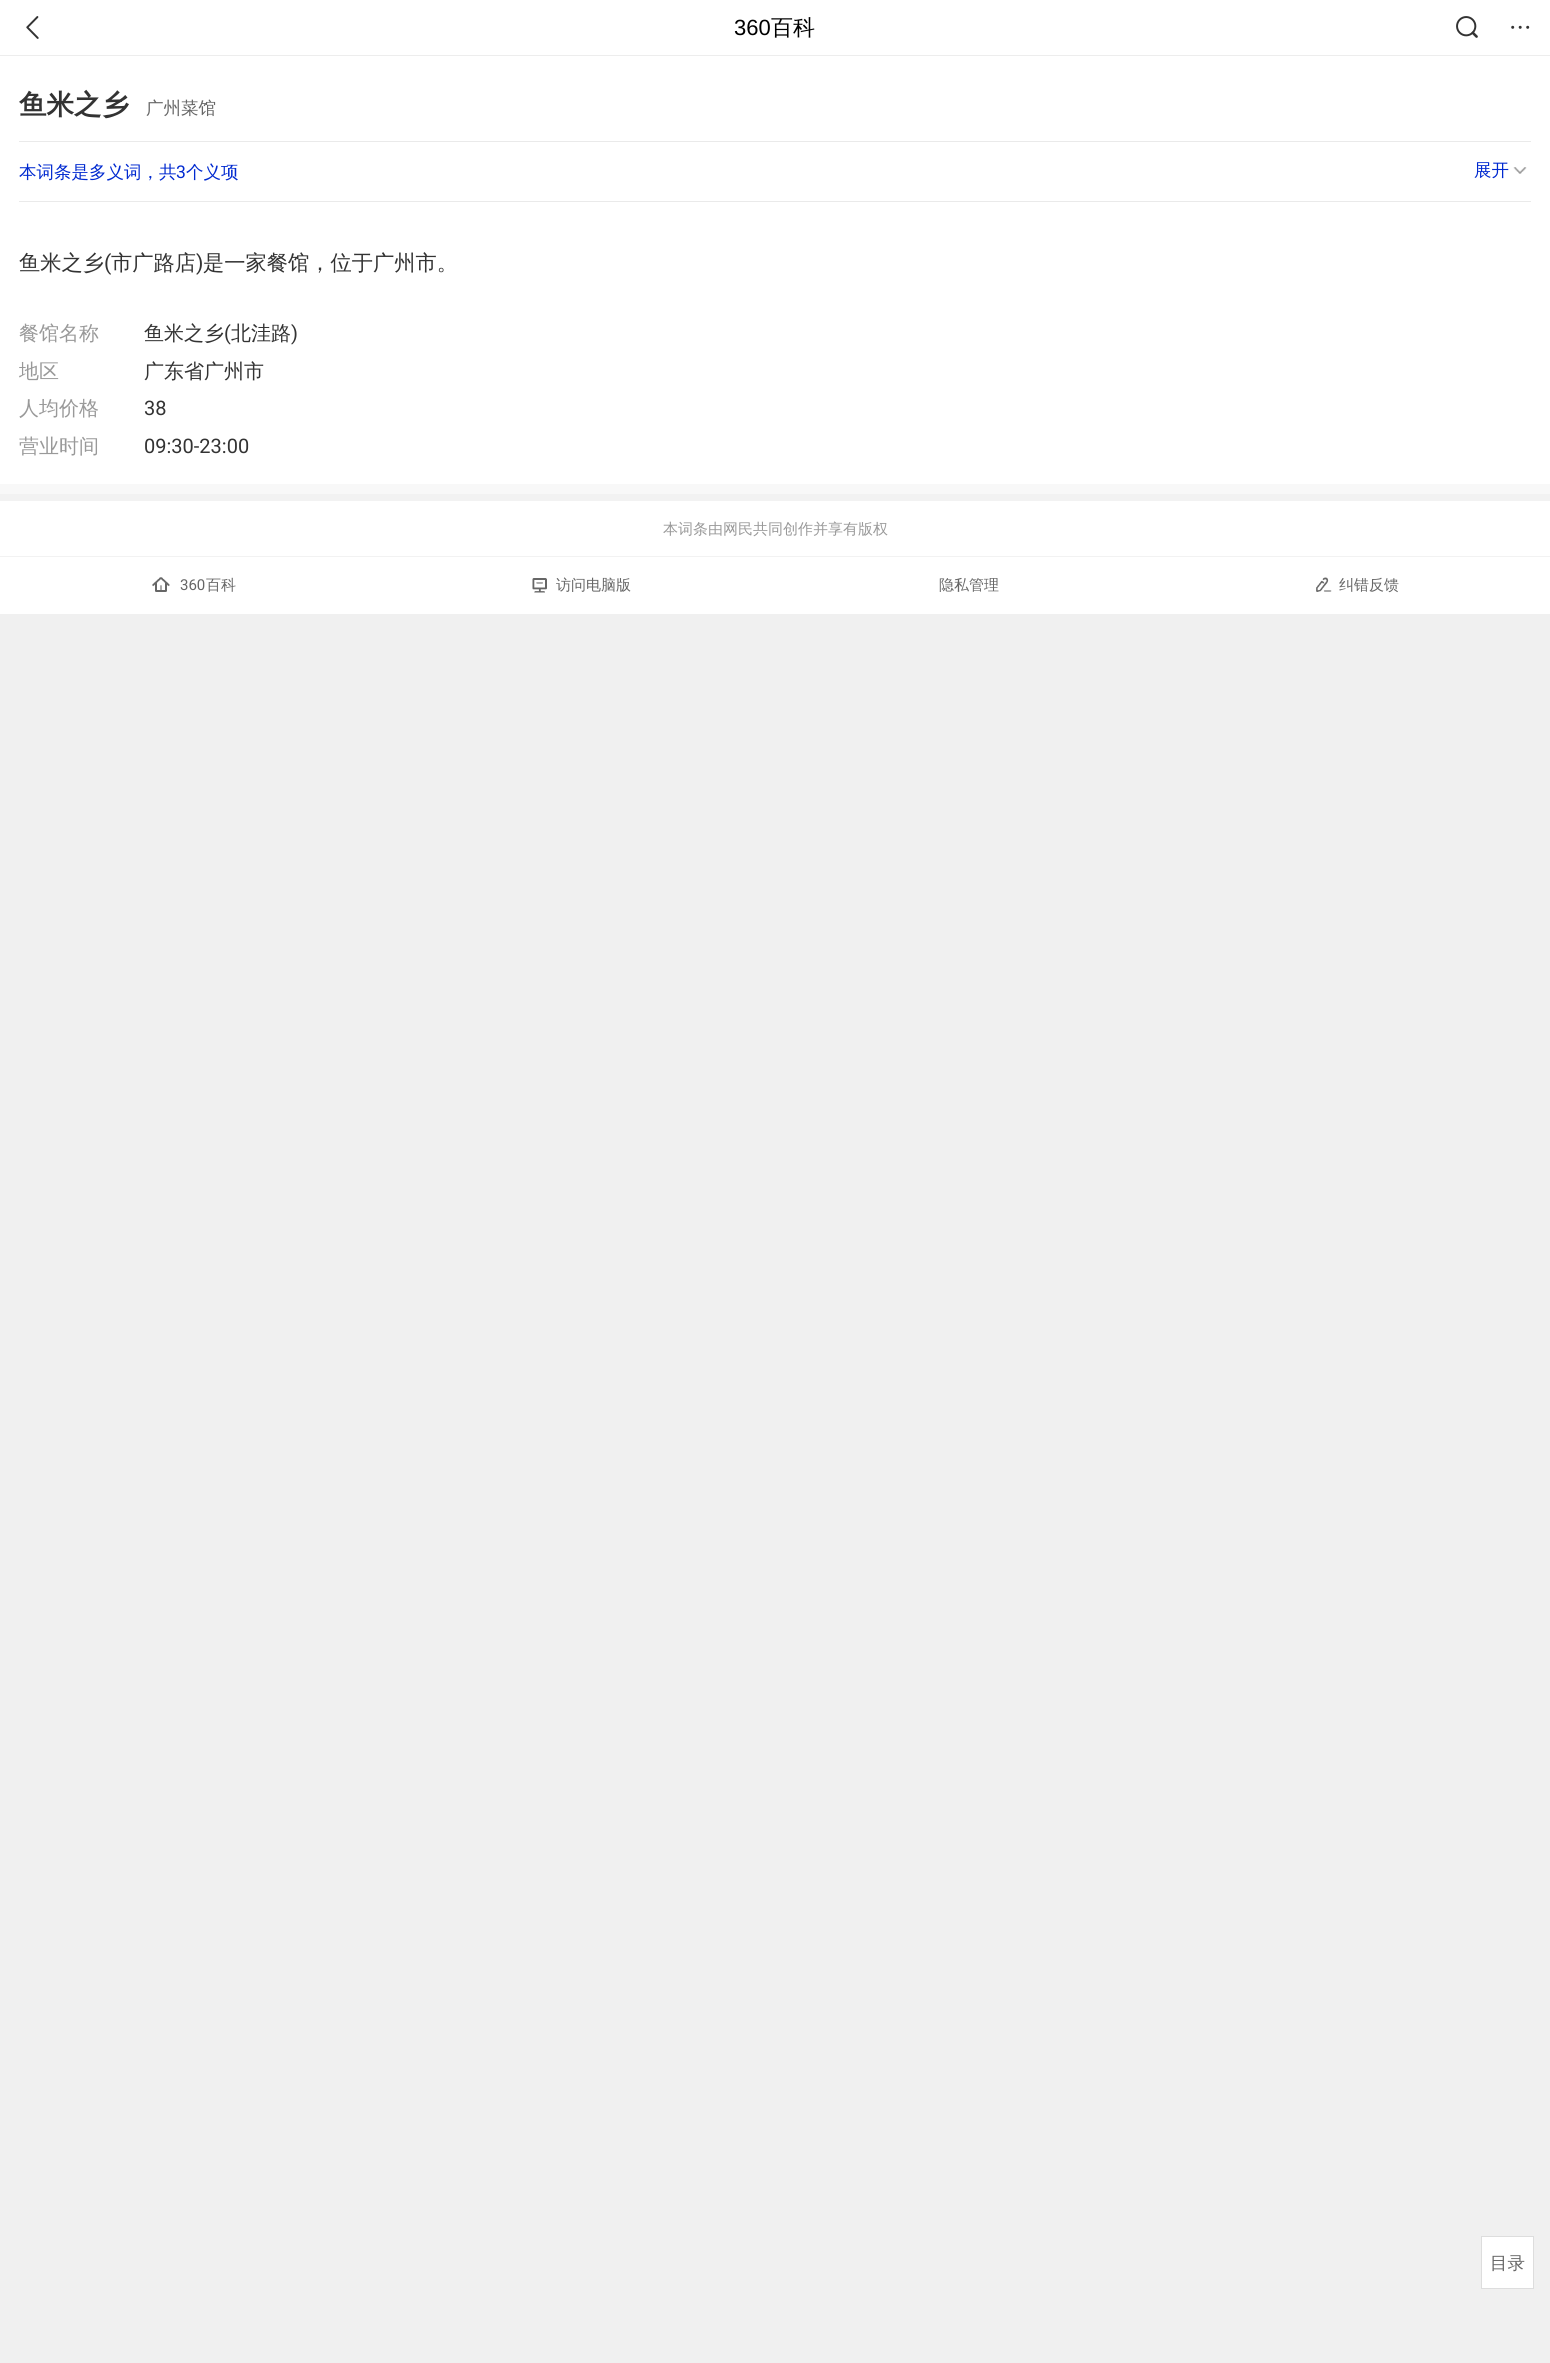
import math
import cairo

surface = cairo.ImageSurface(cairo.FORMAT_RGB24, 1550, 2363)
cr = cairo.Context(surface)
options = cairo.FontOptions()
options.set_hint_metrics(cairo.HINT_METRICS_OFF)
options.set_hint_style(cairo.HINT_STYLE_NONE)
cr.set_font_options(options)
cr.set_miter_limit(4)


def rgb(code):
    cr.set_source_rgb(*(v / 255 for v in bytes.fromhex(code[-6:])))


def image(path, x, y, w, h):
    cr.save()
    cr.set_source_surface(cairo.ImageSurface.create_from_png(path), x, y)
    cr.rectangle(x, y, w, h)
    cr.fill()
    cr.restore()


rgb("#f0f0f0")
cr.paint()
for x, y, w, h, color in [
    (0, 56, 1550, 558, "#ffffff"),
    (0, 0, 1550, 55, "#ffffff"),
    (0, 55, 1550, 1, "#ededed"),
]:
    rgb(color)
    cr.rectangle(x, y, w, h)
    cr.fill()
image("img/1.png", 26, 16, 13, 23)
image("img/2.png", 1456, 16, 22, 22)
rgb("#333333")
cr.arc(1512.7, 27.3, 1.5, 0, 2 * math.pi)
cr.fill()
cr.arc(1520.2, 27.3, 1.5, 0, 2 * math.pi)
cr.fill()
cr.arc(1527.7, 27.3, 1.5, 0, 2 * math.pi)
cr.fill()
rgb("#ffffff")
cr.rectangle(1481.5, 2236.5, 52, 52)
cr.fill_preserve()
rgb("#dddddd")
cr.set_line_width(1)
cr.stroke()
rgb("#eaeaea")
cr.rectangle(19, 141, 1512, 1)
cr.fill()
image("img/3.png", 1513, 167, 14, 7)
for x, y, w, h, color in [
    (19, 201, 1512, 1, "#eaeaea"),
    (0, 484, 1550, 10, "#f8f8f8"),
    (0, 494, 1550, 7, "#f2f2f2"),
    (0, 556, 1550, 1, "#f2f2f2"),
]:
    rgb(color)
    cr.rectangle(x, y, w, h)
    cr.fill()
image("img/4.png", 152, 577, 18, 15)
image("img/5.png", 532, 578, 15, 15)
image("img/6.png", 1316, 577, 16, 15)
cr.select_font_face("Liberation Sans")
cr.set_font_size(22)
rgb("#000000")
cr.move_to(734, 35)
cr.show_text("360")
cr.select_font_face("WenQuanYi Zen Hei Medium")
cr.move_to(771, 35)
cr.show_text("百科")
cr.set_font_size(17.5)
rgb("#666666")
cr.move_to(1490, 2269)
cr.show_text("目录")
cr.select_font_face("WenQuanYi Zen Hei", cairo.FONT_SLANT_NORMAL, cairo.FONT_WEIGHT_BOLD)
cr.set_font_size(27.5)
rgb("#333333")
cr.move_to(19, 114)
cr.show_text("鱼米之乡")
cr.select_font_face("WenQuanYi Zen Hei Medium")
cr.set_font_size(17.5)
rgb("#666666")
cr.move_to(146, 114)
cr.show_text("广州菜馆")
rgb("#0029d0")
cr.move_to(19, 178)
cr.show_text("本词条是多义词，共")
cr.select_font_face("Roboto")
cr.move_to(176, 178)
cr.show_text("3")
cr.select_font_face("WenQuanYi Zen Hei Medium")
cr.move_to(186, 178)
cr.show_text("个义项")
cr.move_to(1474, 176)
cr.show_text("展开")
cr.set_font_size(21.25)
rgb("#333333")
cr.move_to(19, 270)
cr.show_text("鱼米之乡")
cr.select_font_face("Roboto")
cr.move_to(104, 270)
cr.show_text("(")
cr.select_font_face("WenQuanYi Zen Hei Medium")
cr.move_to(111, 270)
cr.show_text("市广路店")
cr.select_font_face("Roboto")
cr.move_to(196, 270)
cr.show_text(")")
cr.select_font_face("WenQuanYi Zen Hei Medium")
cr.move_to(203, 270)
cr.show_text("是一家餐馆，位于广州市。")
cr.set_font_size(20)
rgb("#999999")
cr.move_to(19, 340)
cr.show_text("餐馆名称")
rgb("#333333")
cr.move_to(144, 340)
cr.show_text("鱼米之乡")
cr.select_font_face("Roboto")
cr.move_to(224, 340)
cr.show_text("(")
cr.select_font_face("WenQuanYi Zen Hei Medium")
cr.move_to(231, 340)
cr.show_text("北洼路")
cr.select_font_face("Roboto")
cr.move_to(291, 340)
cr.show_text(")")
cr.select_font_face("WenQuanYi Zen Hei Medium")
rgb("#999999")
cr.move_to(19, 378)
cr.show_text("地区")
rgb("#333333")
cr.move_to(144, 378)
cr.show_text("广东省广州市")
rgb("#999999")
cr.move_to(19, 415)
cr.show_text("人均价格")
cr.select_font_face("Roboto")
rgb("#333333")
cr.move_to(144, 415)
cr.show_text("38")
cr.select_font_face("WenQuanYi Zen Hei Medium")
rgb("#999999")
cr.move_to(19, 453)
cr.show_text("营业时间")
cr.select_font_face("Roboto")
rgb("#333333")
cr.move_to(144, 453)
cr.show_text("09:30-23:00")
cr.select_font_face("WenQuanYi Zen Hei Medium")
cr.set_font_size(15)
rgb("#999999")
cr.move_to(663, 534)
cr.show_text("本词条由网民共同创作并享有版权")
cr.select_font_face("Roboto")
rgb("#666666")
cr.move_to(180, 590)
cr.show_text("360")
cr.select_font_face("WenQuanYi Zen Hei Medium")
for x, y, s in [
    (206, 590, "百科"),
    (556, 590, "访问电脑版"),
    (939, 590, "隐私管理"),
    (1339, 590, "纠错反馈"),
]:
    cr.move_to(x, y)
    cr.show_text(s)
surface.write_to_png("page.png")
